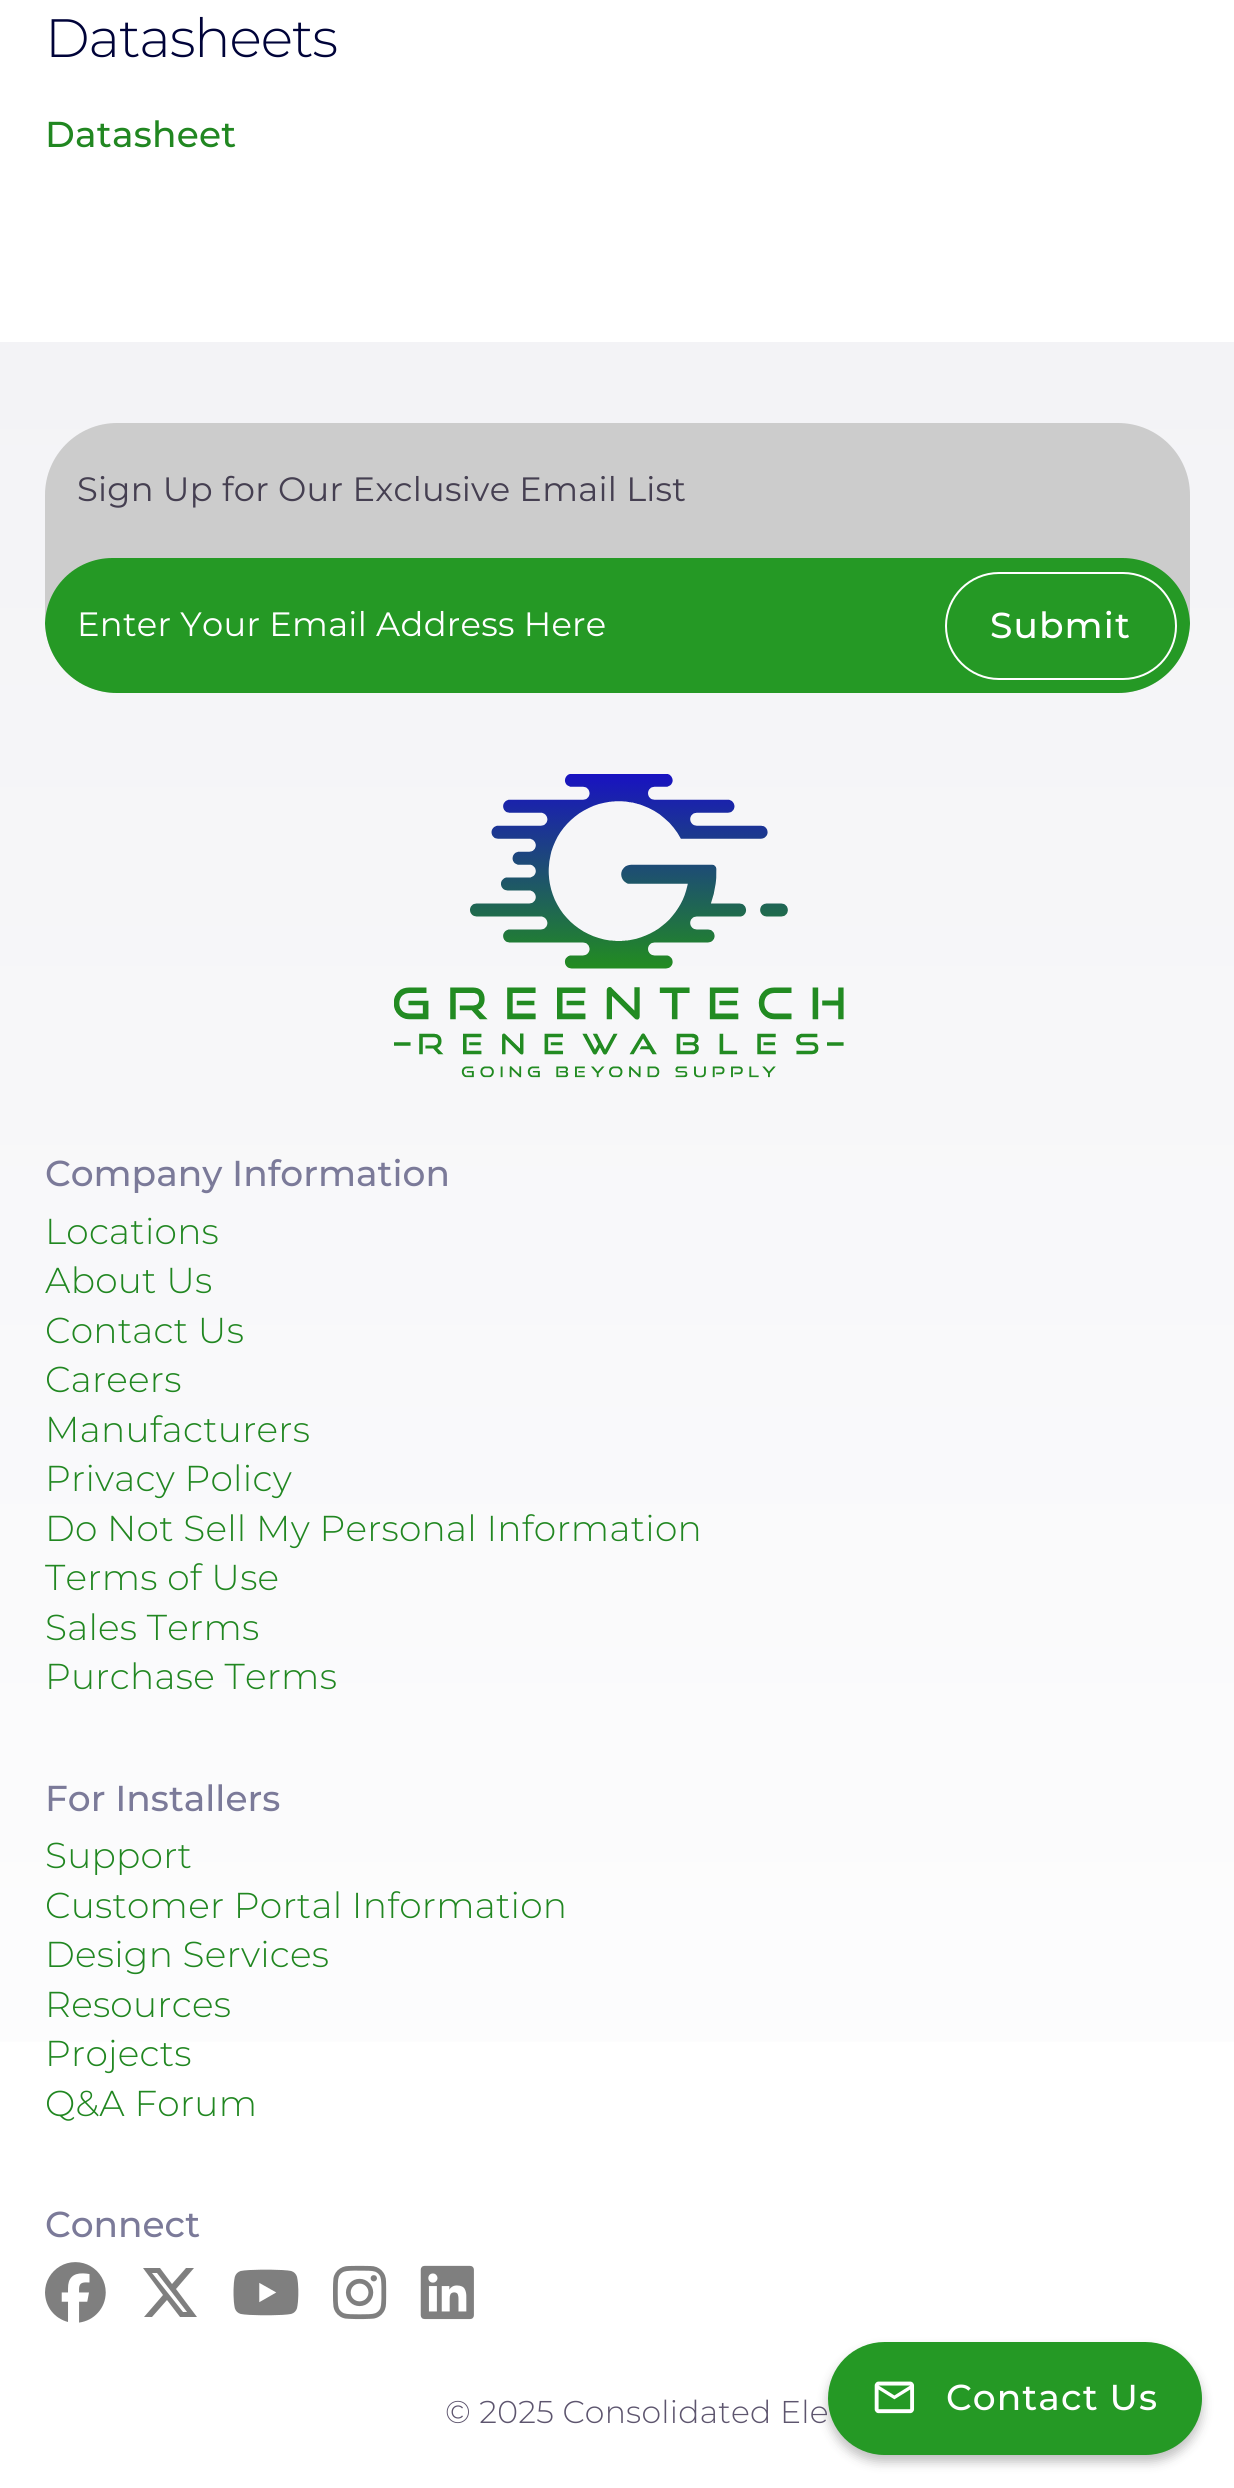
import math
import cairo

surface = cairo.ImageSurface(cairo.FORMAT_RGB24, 1234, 2488)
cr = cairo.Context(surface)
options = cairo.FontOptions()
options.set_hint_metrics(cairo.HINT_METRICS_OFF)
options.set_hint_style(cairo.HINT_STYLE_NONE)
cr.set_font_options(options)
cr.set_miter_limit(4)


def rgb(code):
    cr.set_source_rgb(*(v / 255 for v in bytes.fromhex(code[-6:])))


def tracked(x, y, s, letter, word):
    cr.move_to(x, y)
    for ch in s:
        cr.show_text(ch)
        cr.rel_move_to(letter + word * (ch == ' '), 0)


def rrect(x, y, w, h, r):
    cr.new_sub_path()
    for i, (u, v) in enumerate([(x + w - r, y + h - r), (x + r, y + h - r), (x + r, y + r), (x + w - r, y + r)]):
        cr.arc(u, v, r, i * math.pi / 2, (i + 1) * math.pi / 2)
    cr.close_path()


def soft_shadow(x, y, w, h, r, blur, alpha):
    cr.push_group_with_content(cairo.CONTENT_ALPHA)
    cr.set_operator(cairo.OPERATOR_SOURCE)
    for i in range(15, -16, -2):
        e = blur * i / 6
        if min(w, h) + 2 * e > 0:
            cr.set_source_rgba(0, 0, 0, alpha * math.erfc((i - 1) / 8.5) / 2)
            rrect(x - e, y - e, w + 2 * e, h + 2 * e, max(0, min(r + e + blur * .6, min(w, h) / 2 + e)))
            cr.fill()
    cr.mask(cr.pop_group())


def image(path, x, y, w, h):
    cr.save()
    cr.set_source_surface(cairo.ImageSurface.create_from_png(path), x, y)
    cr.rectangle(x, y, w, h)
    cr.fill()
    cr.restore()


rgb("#ffffff")
cr.paint()
gradient = cairo.LinearGradient(618, 342, 618, 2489)
gradient.add_color_stop_rgba(0, 0.953, 0.953, 0.965, 1)
gradient.add_color_stop_rgba(1, 1, 1, 1, 1)
cr.set_source(gradient)
cr.rectangle(0, 342, 1234, 1700)
cr.fill()
rgb("#cccccc")
rrect(45, 423, 1145, 270, 72)
cr.fill()
rgb("#259925")
cr.new_path()
cr.move_to(112.5, 558)
cr.line_to(1122.5, 558)
cr.curve_to(1160, 558, 1190, 588, 1190, 625.5)
cr.line_to(1190, 621)
cr.curve_to(1190, 661, 1158, 693, 1118, 693)
cr.line_to(117, 693)
cr.curve_to(77, 693, 45, 661, 45, 621)
cr.line_to(45, 625.5)
cr.curve_to(45, 588, 75, 558, 112.5, 558)
cr.close_path()
cr.fill()
rrect(946, 573, 230, 106, 53)
rgb("#ffffff")
cr.stroke()
image("img/1.png", 394, 774, 450, 304)
image("img/2.png", 45, 2262, 61, 61)
rgb("#7f7f7f")
cr.new_path()
cr.move_to(186, 2268)
cr.line_to(194, 2268)
cr.line_to(186, 2268)
cr.line_to(194, 2268)
cr.line_to(176, 2289)
cr.line_to(197, 2317)
cr.line_to(180, 2317)
cr.line_to(167, 2300)
cr.line_to(152, 2317)
cr.line_to(144, 2317)
cr.line_to(163, 2295)
cr.line_to(143, 2268)
cr.line_to(160, 2268)
cr.line_to(172, 2284)
cr.close_path()
cr.move_to(183, 2312)
cr.line_to(187, 2312)
cr.line_to(183, 2312)
cr.line_to(187, 2312)
cr.line_to(157, 2273)
cr.line_to(152, 2273)
cr.close_path()
cr.fill()
image("img/3.png", 233, 2269, 66, 47)
image("img/4.png", 333, 2265, 54, 55)
image("img/5.png", 420, 2265, 54, 55)
rgb("#000000")
soft_shadow(828, 2349, 374, 113, 56.5, 5.5, 0.25)
rgb("#259925")
rrect(828, 2342, 374, 113, 56.5)
cr.fill()
image("img/6.png", 874, 2381, 41, 33)
cr.select_font_face("Montserrat Light")
cr.set_font_size(54)
rgb("#000339")
tracked(45, 57, "Datasheets", -1.1, 0)
cr.select_font_face("Montserrat Medium")
cr.set_font_size(36)
rgb("#218721")
tracked(45, 147, "Datasheet", 0.25, 0)
cr.select_font_face("Montserrat")
cr.set_font_size(33.75)
rgb("#453f51")
tracked(77, 501, "Sign Up for Our Exclusive Email List", 0.25, 0)
rgb("#ffffff")
tracked(77, 636, "Enter Your Email Address Here", 0.25, 0)
cr.select_font_face("Montserrat Medium")
cr.set_font_size(36)
tracked(990, 638, "Submit", 1.1, 0)
rgb("#7b7a99")
cr.move_to(45, 1186)
cr.show_text("Company Information")
cr.select_font_face("Montserrat Light")
rgb("#218721")
for x, y, s in [
    (45, 1244, "Locations"),
    (45, 1293, "About Us"),
    (45, 1343, "Contact Us"),
    (45, 1392, "Careers"),
    (45, 1442, "Manufacturers"),
    (45, 1491, "Privacy Policy"),
    (45, 1541, "Do Not Sell My Personal Information"),
    (45, 1590, "Terms of Use"),
    (45, 1640, "Sales Terms"),
    (45, 1689, "Purchase Terms"),
]:
    tracked(x, y, s, 0.25, 0)
cr.select_font_face("Montserrat Medium")
rgb("#7b7a99")
cr.move_to(45, 1811)
cr.show_text("For Installers")
cr.select_font_face("Montserrat Light")
rgb("#218721")
for x, y, s in [
    (45, 1868, "Support"),
    (45, 1918, "Customer Portal Information"),
    (45, 1967, "Design Services"),
    (45, 2017, "Resources"),
    (45, 2066, "Projects"),
    (45, 2116, "Q&A Forum"),
]:
    tracked(x, y, s, 0.25, 0)
cr.select_font_face("Montserrat Medium")
rgb("#7b7a99")
cr.move_to(45, 2237)
cr.show_text("Connect")
cr.select_font_face("Montserrat Light")
cr.set_font_size(31.5)
rgb("#5d556e")
tracked(445, 2423, "© 2025 Consolidated Ele", 0.25, 0)
cr.select_font_face("Montserrat Medium")
cr.set_font_size(36)
rgb("#ffffff")
tracked(946, 2410, "Contact Us", 1.1, 0)
surface.write_to_png("page.png")
